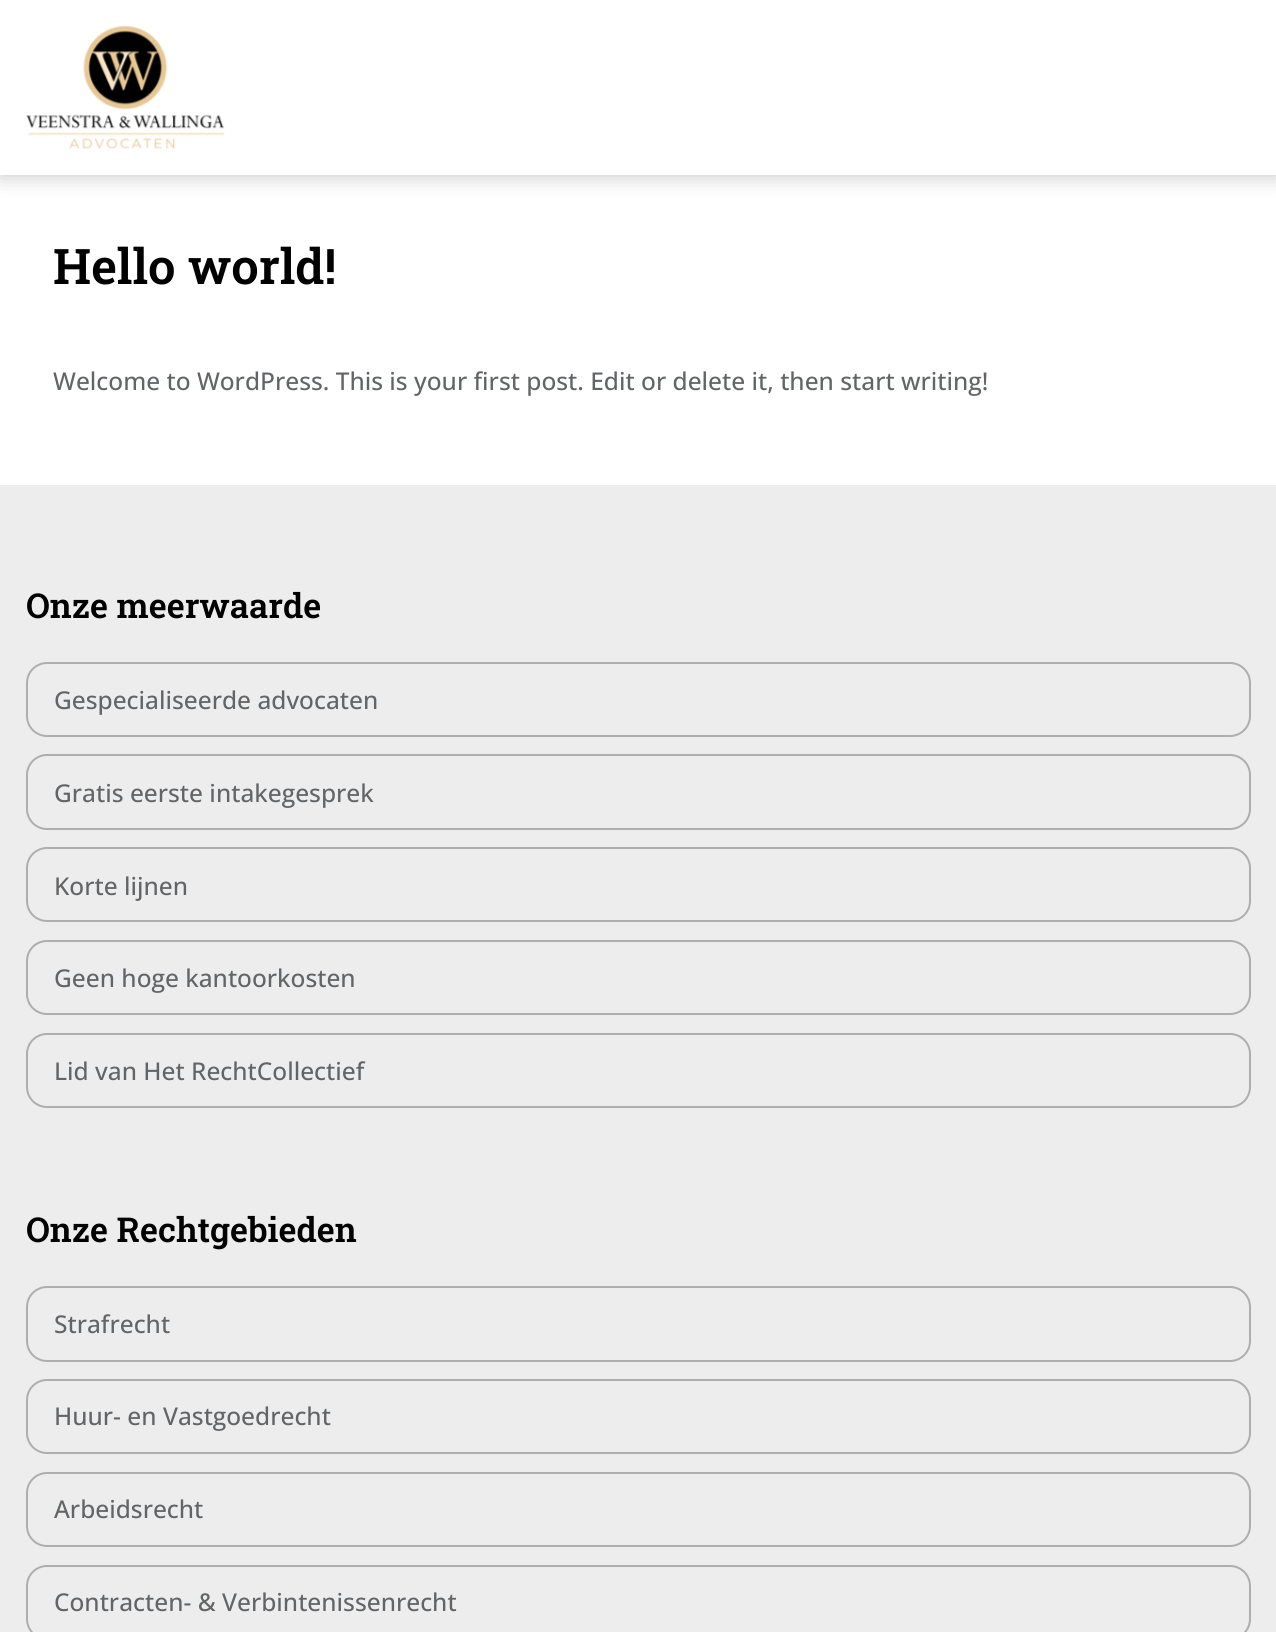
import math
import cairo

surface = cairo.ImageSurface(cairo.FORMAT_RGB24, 1276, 1632)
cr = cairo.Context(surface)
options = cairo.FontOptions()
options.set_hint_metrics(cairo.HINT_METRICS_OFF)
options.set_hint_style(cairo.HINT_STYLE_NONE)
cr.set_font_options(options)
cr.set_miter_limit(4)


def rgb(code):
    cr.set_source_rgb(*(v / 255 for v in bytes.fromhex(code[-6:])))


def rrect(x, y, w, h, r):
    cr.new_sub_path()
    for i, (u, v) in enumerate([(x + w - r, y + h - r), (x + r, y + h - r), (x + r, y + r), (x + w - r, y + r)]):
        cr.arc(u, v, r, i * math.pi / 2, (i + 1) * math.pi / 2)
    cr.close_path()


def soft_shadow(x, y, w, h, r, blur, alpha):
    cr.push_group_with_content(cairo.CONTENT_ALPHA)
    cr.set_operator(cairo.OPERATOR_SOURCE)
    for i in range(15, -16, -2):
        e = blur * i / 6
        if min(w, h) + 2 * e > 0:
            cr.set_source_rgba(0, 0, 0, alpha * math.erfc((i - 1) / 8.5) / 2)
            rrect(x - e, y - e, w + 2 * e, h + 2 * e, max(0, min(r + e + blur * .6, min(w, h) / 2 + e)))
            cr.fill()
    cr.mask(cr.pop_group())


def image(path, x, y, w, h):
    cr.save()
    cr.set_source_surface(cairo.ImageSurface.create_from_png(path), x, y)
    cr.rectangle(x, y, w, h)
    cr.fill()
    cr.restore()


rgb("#ffffff")
cr.paint()
rgb("#c1c0c0")
soft_shadow(0, 0, 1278, 175, 0, 10.5, 1)
rgb("#ffffff")
cr.rectangle(0, 0, 1276, 175)
cr.fill()
image("img/1.png", 26, 26, 199, 123)
rgb("#eeeded")
cr.rectangle(0, 485, 1276, 1147)
cr.fill()
rrect(27, 663, 1223, 73, 20)
rgb("#aeaeae")
cr.stroke()
rrect(27, 755, 1223, 74, 20)
cr.stroke()
rrect(27, 848, 1223, 73, 20)
cr.stroke()
rrect(27, 941, 1223, 73, 20)
cr.stroke()
rrect(27, 1034, 1223, 73, 20)
cr.stroke()
rrect(27, 1287, 1223, 74, 20)
cr.stroke()
rrect(27, 1380, 1223, 73, 20)
cr.stroke()
rrect(27, 1473, 1223, 73, 20)
cr.stroke()
rrect(27, 1566, 1223, 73, 20)
cr.stroke()
cr.select_font_face("Roboto Slab SemiBold")
cr.set_font_size(49)
rgb("#000000")
cr.move_to(53, 284)
cr.show_text("Hello world!")
cr.select_font_face("Open Sans Medium")
cr.set_font_size(24.5)
rgb("#626568")
cr.move_to(53, 390)
cr.show_text("Welcome to WordPress. This is your first post. Edit or delete it, then start writing!")
cr.select_font_face("Roboto Slab SemiBold")
cr.set_font_size(34.25)
rgb("#000000")
cr.move_to(26, 618)
cr.show_text("Onze meerwaarde")
cr.select_font_face("Open Sans Medium")
cr.set_font_size(24.5)
rgb("#626568")
for x, y, s in [
    (54, 709, "Gespecialiseerde advocaten"),
    (54, 802, "Gratis eerste intakegesprek"),
    (54, 895, "Korte lijnen"),
    (54, 987, "Geen hoge kantoorkosten"),
    (54, 1080, "Lid van Het RechtCollectief"),
]:
    cr.move_to(x, y)
    cr.show_text(s)
cr.select_font_face("Roboto Slab SemiBold")
cr.set_font_size(34.25)
rgb("#000000")
cr.move_to(26, 1242)
cr.show_text("Onze Rechtgebieden")
cr.select_font_face("Open Sans Medium")
cr.set_font_size(24.5)
rgb("#626568")
for x, y, s in [
    (54, 1333, "Strafrecht"),
    (54, 1425, "Huur- en Vastgoedrecht"),
    (54, 1518, "Arbeidsrecht"),
    (54, 1611, "Contracten- & Verbintenissenrecht"),
]:
    cr.move_to(x, y)
    cr.show_text(s)
surface.write_to_png("page.png")
